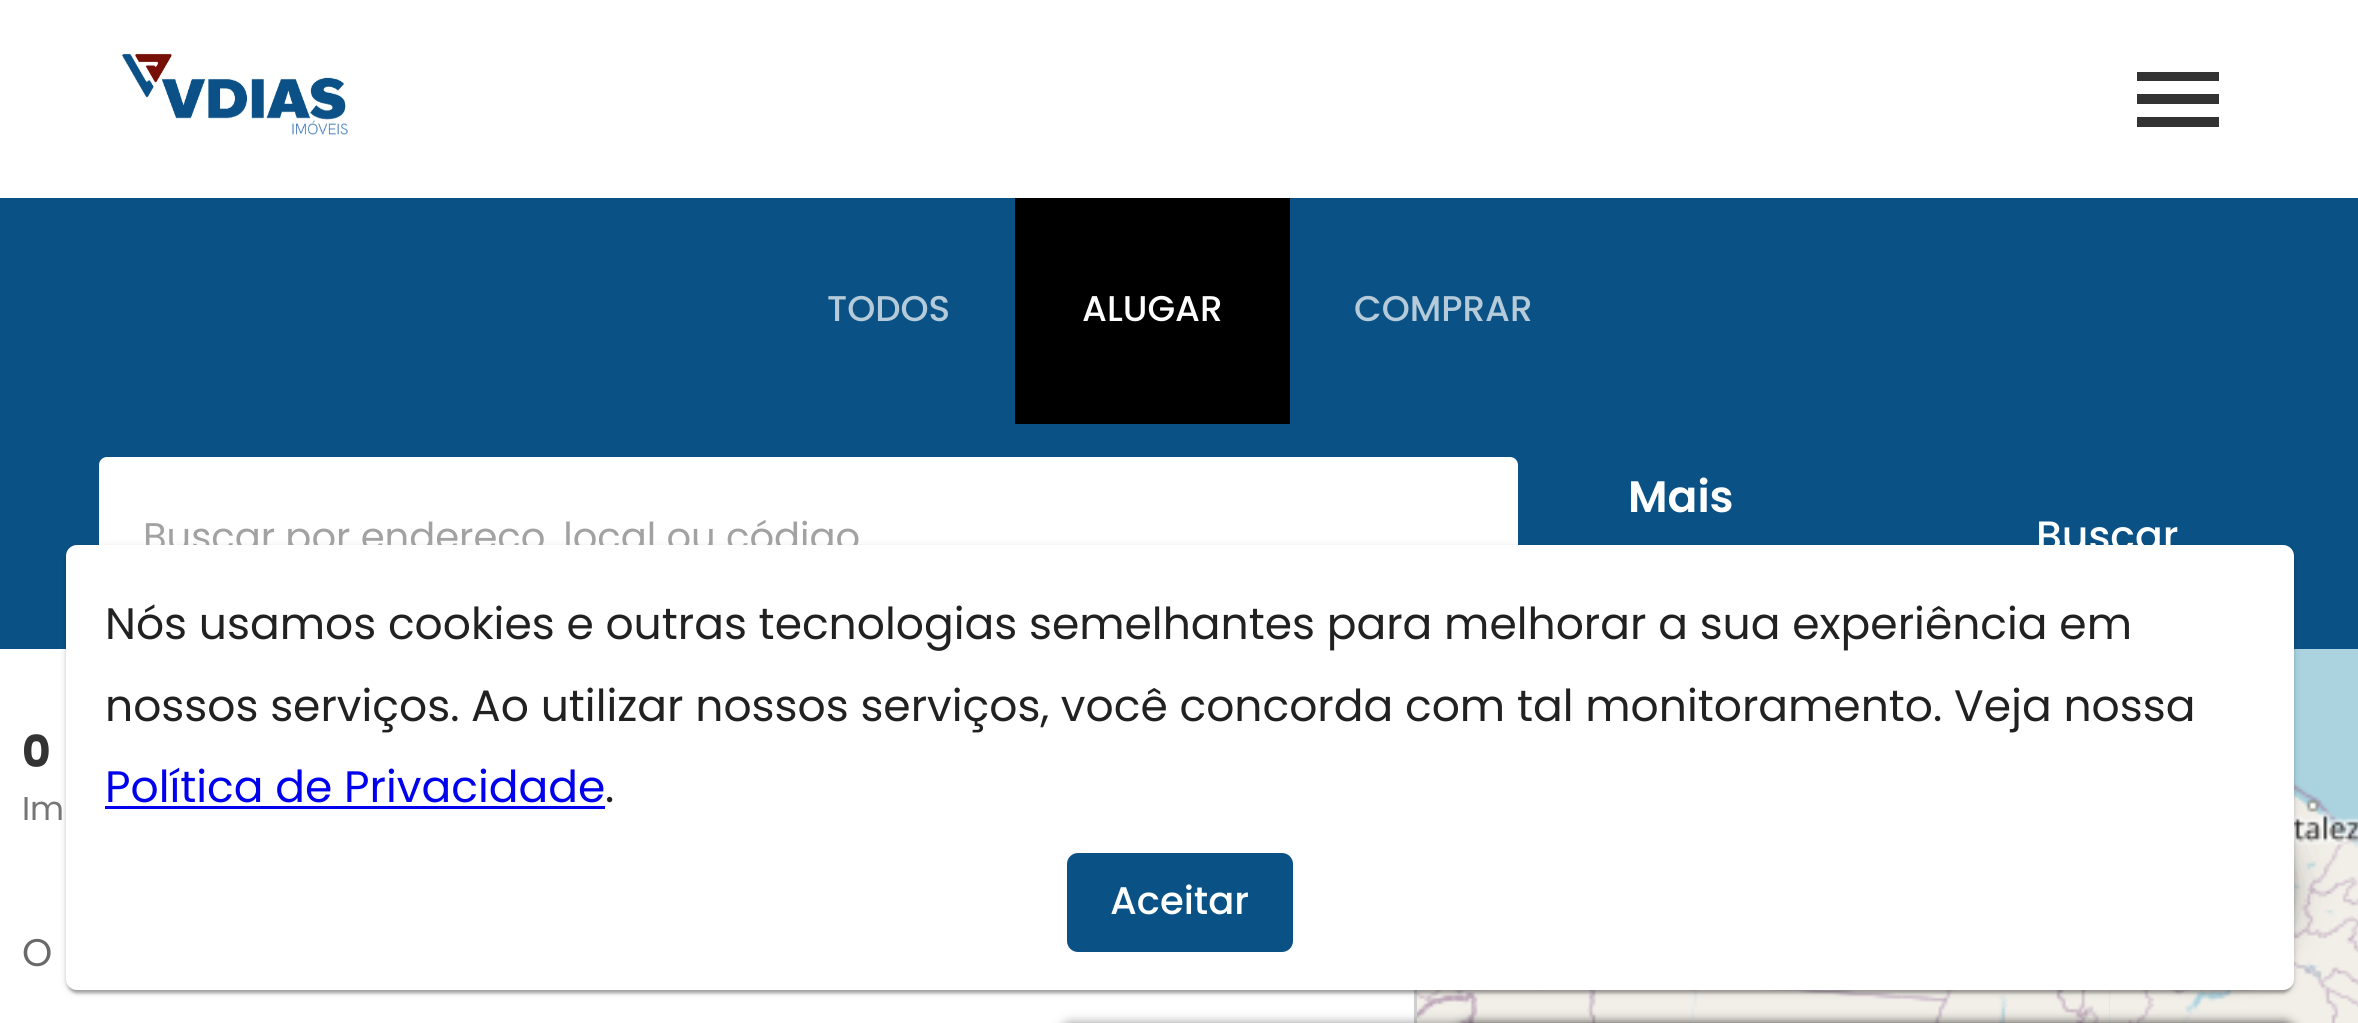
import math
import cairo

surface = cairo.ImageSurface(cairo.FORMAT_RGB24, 2358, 1023)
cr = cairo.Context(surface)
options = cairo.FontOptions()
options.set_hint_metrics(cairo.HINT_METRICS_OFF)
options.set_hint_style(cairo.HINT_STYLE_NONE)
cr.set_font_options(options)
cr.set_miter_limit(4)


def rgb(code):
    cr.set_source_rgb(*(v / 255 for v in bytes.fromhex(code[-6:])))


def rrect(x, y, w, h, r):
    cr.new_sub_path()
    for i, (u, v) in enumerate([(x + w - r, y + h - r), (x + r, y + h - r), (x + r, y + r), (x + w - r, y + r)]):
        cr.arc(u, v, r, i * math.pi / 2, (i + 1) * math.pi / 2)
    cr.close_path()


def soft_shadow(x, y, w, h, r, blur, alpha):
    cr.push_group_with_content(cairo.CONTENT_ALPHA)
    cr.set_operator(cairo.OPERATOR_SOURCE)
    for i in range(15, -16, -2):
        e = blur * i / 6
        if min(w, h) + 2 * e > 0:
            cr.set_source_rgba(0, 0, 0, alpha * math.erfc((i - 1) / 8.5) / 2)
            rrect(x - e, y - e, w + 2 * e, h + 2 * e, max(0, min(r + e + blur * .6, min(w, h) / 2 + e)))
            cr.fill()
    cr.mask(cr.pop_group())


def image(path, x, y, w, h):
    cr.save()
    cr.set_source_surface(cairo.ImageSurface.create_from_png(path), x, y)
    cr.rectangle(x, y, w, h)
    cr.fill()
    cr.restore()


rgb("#ffffff")
cr.paint()
image("img/1.png", 122, 53, 226, 82)
rgb("#333333")
cr.new_path()
cr.move_to(2137, 127)
cr.line_to(2219, 127)
cr.line_to(2219, 117)
cr.line_to(2137, 117)
cr.close_path()
cr.move_to(2137, 104)
cr.line_to(2219, 104)
cr.line_to(2219, 94)
cr.line_to(2137, 94)
cr.close_path()
cr.move_to(2137, 72)
cr.line_to(2137, 81)
cr.line_to(2219, 81)
cr.line_to(2219, 72)
cr.close_path()
cr.fill()
rgb("#0a5285")
cr.rectangle(0, 198, 2358, 451)
cr.fill()
rgb("#000000")
cr.rectangle(1015, 198, 275, 226)
cr.fill()
rgb("#ffffff")
rrect(99, 457, 1419, 159, 8)
cr.fill()
rgb("#cecece")
cr.rectangle(1414, 990, 3, 33)
cr.fill()
rgb("#dddddd")
cr.rectangle(2109, 990, 2, 33)
cr.fill()
image("img/2.png", 2294, 649, 64, 41)
image("img/3.png", 1417, 990, 692, 33)
image("img/4.png", 2108, 690, 250, 333)
rgb("#000000")
soft_shadow(66, 547, 2228, 446, 11, 4, 0.12)
soft_shadow(66, 547, 2228, 446, 11, 1.5, 0.14)
soft_shadow(69, 553, 2222, 440, 8, 1.5, 0.2)
soft_shadow(2140, 806, 154, 154, 77, 25, 0.12)
soft_shadow(2140, 820, 154, 154, 77, 14, 0.14)
soft_shadow(2142, 814, 149, 149, 74.5, 7, 0.2)
soft_shadow(1455, 1023, 841, 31, 14, 5.5, 0.4)
soft_shadow(1059, 1023, 1237, 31, 14, 5.5, 0.4)
cr.select_font_face("Poppins Medium")
cr.set_font_size(35.75)
rgb("#b6cbda")
cr.move_to(827, 321)
cr.show_text("TODOS")
rgb("#ffffff")
cr.move_to(1082, 321)
cr.show_text("ALUGAR")
rgb("#b6cbda")
cr.move_to(1354, 321)
cr.show_text("COMPRAR")
cr.select_font_face("Poppins SemiBold")
cr.set_font_size(44)
rgb("#ffffff")
cr.move_to(1628, 512)
cr.show_text("Mais")
cr.select_font_face("Poppins")
cr.set_font_size(38.5)
rgb("#a2a2a2")
cr.move_to(143, 550)
cr.show_text("Buscar por endereço, local ou código")
cr.select_font_face("Poppins Medium")
cr.set_font_size(41)
rgb("#ffffff")
cr.move_to(2036, 550)
cr.show_text("Buscar")
cr.select_font_face("Poppins", cairo.FONT_SLANT_NORMAL, cairo.FONT_WEIGHT_BOLD)
cr.set_font_size(44)
rgb("#333333")
cr.move_to(22, 767)
cr.show_text("0")
cr.select_font_face("Poppins")
cr.set_font_size(33)
rgb("#757575")
cr.move_to(22, 820)
cr.show_text("Im")
cr.set_font_size(38.5)
rgb("#696969")
cr.move_to(22, 966)
cr.show_text("O")
rgb("#ffffff")
rrect(66, 545, 2228, 445, 11)
cr.fill()
cr.set_font_size(44)
rgb("#212121")
cr.move_to(105, 639)
cr.show_text("Nós usamos cookies e outras tecnologias semelhantes para melhorar a sua experiência em")
cr.move_to(105, 721)
cr.show_text("nossos serviços. Ao utilizar nossos serviços, você concorda com tal monitoramento. Veja nossa")
rgb("#0000ee")
cr.move_to(105, 802)
cr.show_text("Política de Privacidade")
cr.rectangle(105, 806, 500, 3)
cr.fill()
rgb("#212121")
cr.move_to(605, 802)
cr.show_text(".")
rgb("#0a5285")
rrect(1067, 853, 226, 99, 11)
cr.fill()
cr.select_font_face("Poppins Medium")
cr.set_font_size(38.5)
rgb("#ffffff")
cr.move_to(1110, 914)
cr.show_text("Aceitar")
surface.write_to_png("page.png")
